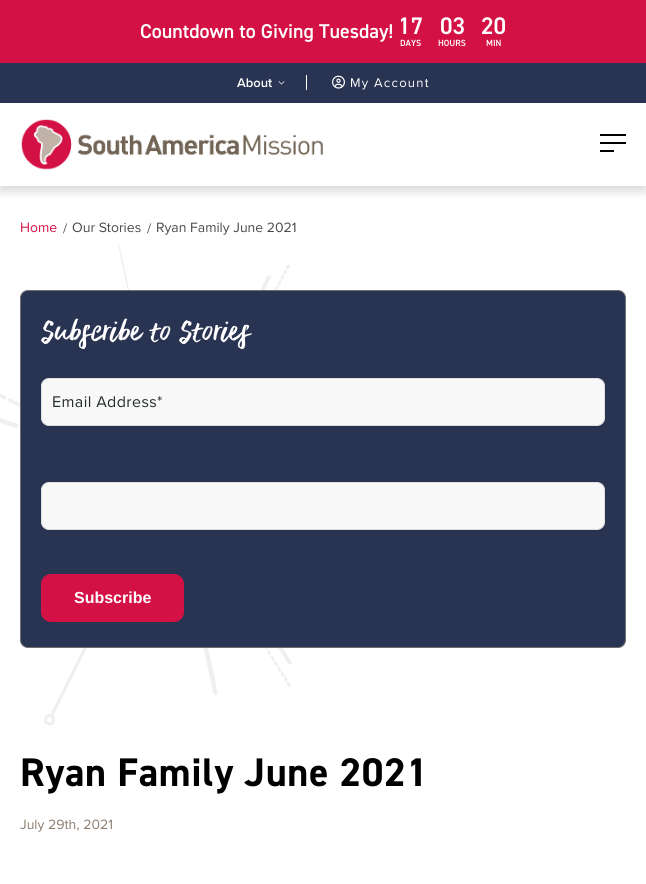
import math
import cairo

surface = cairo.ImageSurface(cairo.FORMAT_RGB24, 646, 884)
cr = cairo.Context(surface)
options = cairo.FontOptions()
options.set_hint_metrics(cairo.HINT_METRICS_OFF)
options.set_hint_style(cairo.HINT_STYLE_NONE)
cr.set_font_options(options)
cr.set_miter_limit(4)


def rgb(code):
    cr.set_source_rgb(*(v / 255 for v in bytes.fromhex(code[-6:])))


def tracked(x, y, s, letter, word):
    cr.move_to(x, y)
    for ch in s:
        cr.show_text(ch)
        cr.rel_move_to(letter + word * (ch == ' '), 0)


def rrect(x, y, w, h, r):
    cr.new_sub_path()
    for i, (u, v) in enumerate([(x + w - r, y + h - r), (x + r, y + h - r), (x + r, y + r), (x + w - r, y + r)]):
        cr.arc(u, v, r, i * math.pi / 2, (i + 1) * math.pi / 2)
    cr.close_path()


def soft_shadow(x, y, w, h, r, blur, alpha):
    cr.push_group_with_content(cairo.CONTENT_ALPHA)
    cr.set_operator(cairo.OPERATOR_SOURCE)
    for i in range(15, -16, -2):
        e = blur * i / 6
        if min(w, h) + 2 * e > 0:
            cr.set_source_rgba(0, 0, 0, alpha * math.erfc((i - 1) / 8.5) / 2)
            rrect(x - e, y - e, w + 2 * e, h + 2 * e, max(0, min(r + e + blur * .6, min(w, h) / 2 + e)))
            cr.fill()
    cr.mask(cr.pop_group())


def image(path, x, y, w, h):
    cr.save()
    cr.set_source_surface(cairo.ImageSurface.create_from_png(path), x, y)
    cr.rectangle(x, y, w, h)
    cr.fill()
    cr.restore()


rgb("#ffffff")
cr.paint()
rgb("#d31144")
cr.rectangle(0, 0, 646, 63)
cr.fill()
rgb("#293352")
cr.rectangle(0, 63, 646, 40)
cr.fill()
image("img/1.png", 278, 81, 7, 4)
rgb("#ffffff")
cr.rectangle(306, 75, 1, 15)
cr.fill()
image("img/2.png", 332, 75, 13, 14)
cr.save()
cr.set_fill_rule(cairo.FILL_RULE_EVEN_ODD)
cr.new_path()
cr.move_to(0, 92)
cr.line_to(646, 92)
cr.line_to(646, 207)
cr.line_to(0, 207)
cr.close_path()
cr.move_to(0, 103)
cr.line_to(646, 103)
cr.line_to(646, 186)
cr.line_to(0, 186)
cr.close_path()
cr.clip()
rgb("#000000")
soft_shadow(0, 108, 646, 83, 0, 5, 0.16)
cr.restore()
image("img/3.png", 21, 119, 302, 51)
for x, y, w, h, color in [
    (600, 134, 26, 2, "#000000"),
    (600, 142, 26, 2, "#000000"),
    (600, 150, 14, 2, "#000000"),
]:
    rgb(color)
    cr.rectangle(x, y, w, h)
    cr.fill()
image("img/4.png", 0, 244, 292, 482)
rgb("#293352")
rrect(20.5, 290.5, 605, 357, 7.5)
cr.fill_preserve()
rgb("#707070")
cr.set_line_width(1)
cr.stroke()
rgb("#f8f8f8")
rrect(41.5, 378.5, 563, 47, 7.5)
cr.fill_preserve()
rgb("#dedede")
cr.stroke()
rgb("#f8f8f8")
rrect(41.5, 482.5, 563, 47, 7.5)
cr.fill_preserve()
rgb("#dedede")
cr.stroke()
rgb("#d31145")
rrect(41, 574, 143, 48, 10)
cr.fill()
cr.select_font_face("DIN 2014 SemiBold")
cr.set_font_size(20)
rgb("#ffffff")
cr.move_to(140, 38)
cr.show_text("Countdown to Giving Tuesday!")
cr.set_font_size(24)
cr.move_to(398, 34)
cr.show_text("17")
cr.set_font_size(9)
cr.move_to(400, 46)
cr.show_text("DAYS")
cr.set_font_size(24)
cr.move_to(440, 34)
cr.show_text("03")
cr.set_font_size(9)
cr.move_to(438, 46)
cr.show_text("HOURS")
cr.set_font_size(24)
cr.move_to(481, 34)
cr.show_text("20")
cr.set_font_size(9)
cr.move_to(486, 46)
cr.show_text("MIN")
cr.select_font_face("Proxima Nova SemiBold")
cr.set_font_size(13)
cr.move_to(237, 87)
cr.show_text("About")
cr.select_font_face("Proxima Nova")
tracked(350, 87, "My Account", 1.25, 0)
cr.set_font_size(14)
rgb("#d31145")
cr.move_to(20, 232)
cr.show_text("Home")
rgb("#4a4a4a")
for x, y, s in [
    (63, 233, "/"),
    (72, 232, "Our Stories"),
    (147, 233, "/"),
    (156, 232, "Ryan Family June 2021"),
]:
    cr.move_to(x, y)
    cr.show_text(s)
cr.select_font_face("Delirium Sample")
cr.set_font_size(24)
rgb("#ffffff")
cr.move_to(41, 339)
cr.show_text("Subscribe to Stories")
cr.select_font_face("Proxima Nova")
cr.set_font_size(16)
rgb("#232b2b")
tracked(52, 407, "Email Address*", 0.4, 0)
cr.select_font_face("Liberation Sans", cairo.FONT_SLANT_NORMAL, cairo.FONT_WEIGHT_BOLD)
rgb("#ffffff")
cr.move_to(74, 603)
cr.show_text("Subscribe")
cr.select_font_face("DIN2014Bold", cairo.FONT_SLANT_NORMAL, cairo.FONT_WEIGHT_BOLD)
cr.set_font_size(40)
rgb("#000000")
tracked(20, 786, "Ryan Family June 2021", 0.6, 0)
cr.select_font_face("Proxima Nova")
cr.set_font_size(14)
rgb("#8b7d6f")
cr.move_to(20, 829)
cr.show_text("July 29th, 2021")
surface.write_to_png("page.png")
